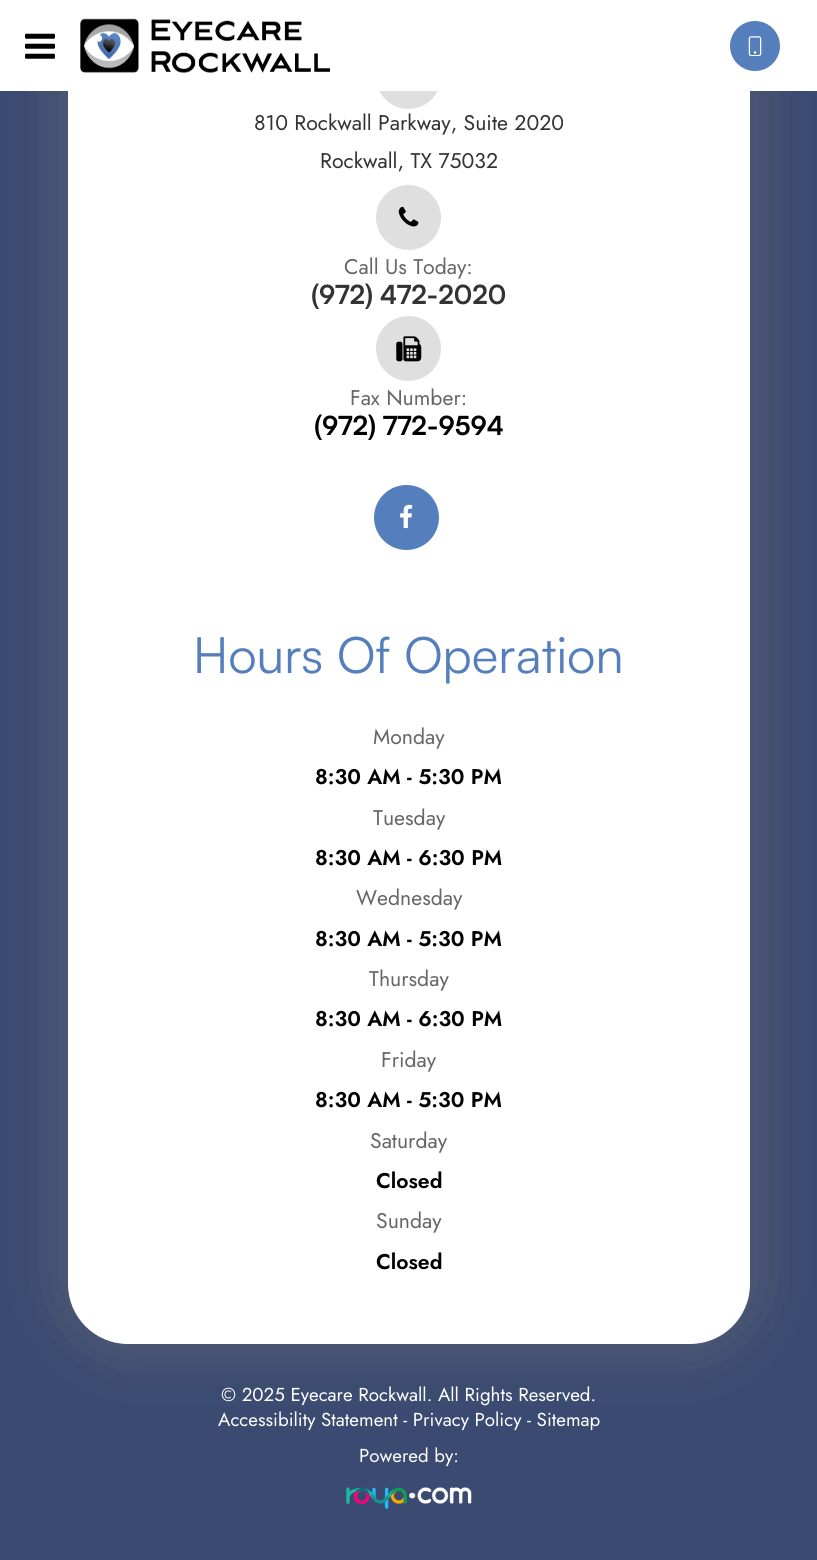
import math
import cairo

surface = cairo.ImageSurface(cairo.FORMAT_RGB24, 817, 1560)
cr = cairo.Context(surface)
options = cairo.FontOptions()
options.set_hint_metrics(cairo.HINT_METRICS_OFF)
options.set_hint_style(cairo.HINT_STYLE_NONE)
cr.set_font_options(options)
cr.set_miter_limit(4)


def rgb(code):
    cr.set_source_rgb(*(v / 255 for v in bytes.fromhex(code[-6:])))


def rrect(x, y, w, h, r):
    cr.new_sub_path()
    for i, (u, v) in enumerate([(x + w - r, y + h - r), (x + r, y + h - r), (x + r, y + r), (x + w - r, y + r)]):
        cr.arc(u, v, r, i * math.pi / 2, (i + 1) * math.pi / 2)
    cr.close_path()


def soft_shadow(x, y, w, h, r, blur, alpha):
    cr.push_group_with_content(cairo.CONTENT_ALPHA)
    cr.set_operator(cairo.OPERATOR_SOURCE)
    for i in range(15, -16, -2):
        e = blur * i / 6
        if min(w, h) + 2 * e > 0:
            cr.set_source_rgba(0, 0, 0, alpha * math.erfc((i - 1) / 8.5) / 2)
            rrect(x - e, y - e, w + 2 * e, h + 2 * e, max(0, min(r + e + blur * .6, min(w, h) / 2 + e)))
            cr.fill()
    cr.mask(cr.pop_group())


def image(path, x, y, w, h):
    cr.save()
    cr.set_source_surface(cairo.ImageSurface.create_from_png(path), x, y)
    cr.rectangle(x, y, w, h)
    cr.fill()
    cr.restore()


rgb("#3a4a71")
cr.paint()
rgb("#777777")
soft_shadow(64, -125, 690, 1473, 64, 31, 0.5)
rgb("#ffffff")
rrect(68, -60, 682, 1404, 60)
cr.fill()
rgb("#dfdfdf")
cr.arc(408.5, 76.5, 32.5, 0, 2 * math.pi)
cr.fill()
rgb("#ffffff")
cr.rectangle(0, 0, 817, 91)
cr.fill()
image("img/1.png", 25, 33, 30, 26)
image("img/2.png", 80, 18, 250, 55)
rgb("#547ebc")
cr.arc(755, 46, 25, 0, 2 * math.pi)
cr.fill()
image("img/3.png", 748, 36, 14, 20)
rgb("#dfdfdf")
cr.arc(408.5, 217.5, 32.5, 0, 2 * math.pi)
cr.fill()
image("img/4.png", 398, 206, 21, 21)
cr.arc(408.5, 348.5, 32.5, 0, 2 * math.pi)
cr.fill()
image("img/5.png", 396, 336, 26, 26)
rgb("#547ebc")
cr.arc(406.5, 517.5, 32.5, 0, 2 * math.pi)
cr.fill()
image("img/6.png", 400, 504, 13, 25)
image("img/7.png", 346, 1487, 126, 22)
cr.select_font_face("Jost")
cr.set_font_size(21.25)
rgb("#333333")
cr.move_to(254, 130)
cr.show_text("810 Rockwall Parkway, Suite 2020")
cr.move_to(320, 168)
cr.show_text("Rockwall, TX 75032")
rgb("#666666")
cr.move_to(344, 274)
cr.show_text("Call Us Today:")
cr.select_font_face("Satoshi", cairo.FONT_SLANT_NORMAL, cairo.FONT_WEIGHT_BOLD)
cr.set_font_size(26.25)
rgb("#333333")
cr.move_to(311, 304)
cr.show_text("(972) 472-2020")
cr.select_font_face("Jost")
cr.set_font_size(21.25)
rgb("#666666")
cr.move_to(350, 405)
cr.show_text("Fax Number:")
cr.select_font_face("Satoshi", cairo.FONT_SLANT_NORMAL, cairo.FONT_WEIGHT_BOLD)
cr.set_font_size(26.25)
rgb("#000000")
cr.move_to(314, 435)
cr.show_text("(972) 772-9594")
cr.select_font_face("Satoshi")
cr.set_font_size(50)
rgb("#547ebc")
cr.move_to(193, 673)
cr.show_text("Hours Of Operation")
cr.select_font_face("Jost")
cr.set_font_size(21.25)
rgb("#666666")
cr.move_to(373, 744)
cr.show_text("Monday")
cr.select_font_face("Jost SemiBold")
rgb("#000000")
cr.move_to(315, 784)
cr.show_text("8:30 AM - 5:30 PM")
cr.select_font_face("Jost")
rgb("#666666")
cr.move_to(373, 825)
cr.show_text("Tuesday")
cr.select_font_face("Jost SemiBold")
rgb("#000000")
cr.move_to(315, 865)
cr.show_text("8:30 AM - 6:30 PM")
cr.select_font_face("Jost")
rgb("#666666")
cr.move_to(356, 905)
cr.show_text("Wednesday")
cr.select_font_face("Jost SemiBold")
rgb("#000000")
cr.move_to(315, 946)
cr.show_text("8:30 AM - 5:30 PM")
cr.select_font_face("Jost")
rgb("#666666")
cr.move_to(369, 986)
cr.show_text("Thursday")
cr.select_font_face("Jost SemiBold")
rgb("#000000")
cr.move_to(315, 1026)
cr.show_text("8:30 AM - 6:30 PM")
cr.select_font_face("Jost")
rgb("#666666")
cr.move_to(381, 1067)
cr.show_text("Friday")
cr.select_font_face("Jost SemiBold")
rgb("#000000")
cr.move_to(315, 1107)
cr.show_text("8:30 AM - 5:30 PM")
cr.select_font_face("Jost")
rgb("#666666")
cr.move_to(370, 1148)
cr.show_text("Saturday")
cr.select_font_face("Jost SemiBold")
rgb("#000000")
cr.move_to(376, 1188)
cr.show_text("Closed")
cr.select_font_face("Jost")
rgb("#666666")
cr.move_to(376, 1228)
cr.show_text("Sunday")
cr.select_font_face("Jost SemiBold")
rgb("#000000")
cr.move_to(376, 1269)
cr.show_text("Closed")
cr.select_font_face("Jost")
cr.set_font_size(18.75)
rgb("#ffffff")
for x, y, s in [
    (221, 1401, "© 2025 Eyecare Rockwall. All Rights Reserved."),
    (218, 1426, "Accessibility Statement - Privacy Policy - Sitemap"),
    (359, 1462, "Powered by:"),
]:
    cr.move_to(x, y)
    cr.show_text(s)
surface.write_to_png("page.png")
